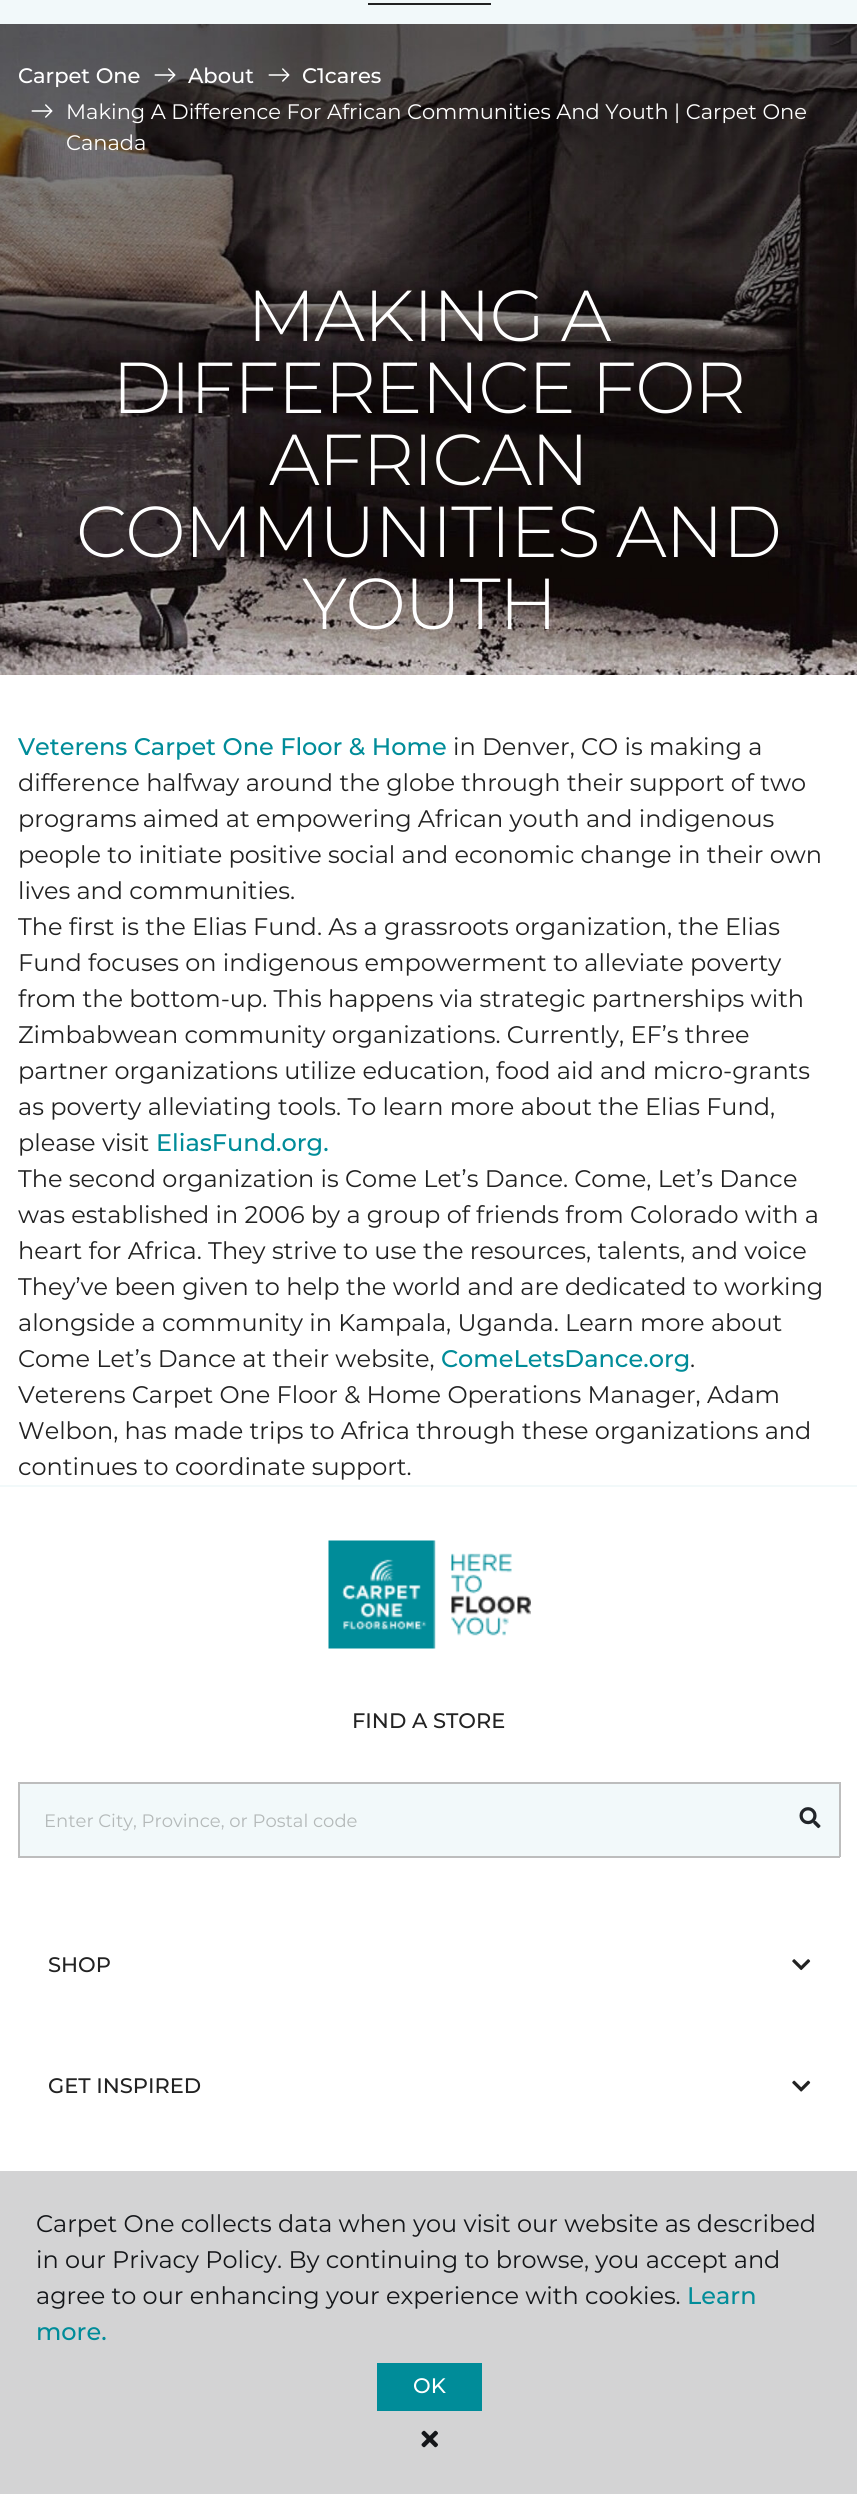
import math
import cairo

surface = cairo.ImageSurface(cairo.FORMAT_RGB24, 857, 2494)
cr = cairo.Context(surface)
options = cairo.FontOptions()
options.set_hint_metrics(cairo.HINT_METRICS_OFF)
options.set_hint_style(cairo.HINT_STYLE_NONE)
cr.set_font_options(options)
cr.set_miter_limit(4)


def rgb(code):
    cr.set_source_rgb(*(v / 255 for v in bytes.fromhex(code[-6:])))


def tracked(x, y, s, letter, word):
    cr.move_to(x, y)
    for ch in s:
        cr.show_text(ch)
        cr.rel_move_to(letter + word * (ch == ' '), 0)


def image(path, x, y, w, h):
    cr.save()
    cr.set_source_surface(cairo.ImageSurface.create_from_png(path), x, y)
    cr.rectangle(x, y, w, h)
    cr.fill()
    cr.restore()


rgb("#ffffff")
cr.paint()
rgb("#f2f9fa")
cr.rectangle(0, 0, 857, 24)
cr.fill()
rgb("#222222")
cr.rectangle(368, 3, 123, 2)
cr.fill()
image("img/1.png", 0, 24, 857, 651)
image("img/2.png", 154, 68, 22, 14)
image("img/3.png", 268, 68, 22, 14)
image("img/4.png", 31, 104, 22, 14)
rgb("#f2f9fa")
cr.rectangle(0, 1485, 857, 2)
cr.fill()
image("img/5.png", 328, 1540, 203, 109)
for x, y, w, h, color in [
    (20, 1784, 819, 72, "#f2f9fa"),
    (18, 1782, 822, 2, "#bdbdbd"),
    (18, 1856, 765, 2, "#bdbdbd"),
    (18, 1782, 2, 75, "#bdbdbd"),
    (839, 1782, 2, 75, "#bdbdbd"),
    (782, 1856, 58, 2, "#bdbdbd"),
]:
    rgb(color)
    cr.rectangle(x, y, w, h)
    cr.fill()
image("img/6.png", 799, 1807, 22, 22)
image("img/7.png", 792, 1959, 19, 12)
image("img/8.png", 792, 2080, 19, 12)
rgb("#d3d3d4")
cr.rectangle(0, 2171, 857, 323)
cr.fill()
rgb("#008c99")
cr.rectangle(377, 2363, 105, 48)
cr.fill()
image("img/9.png", 421, 2430, 17, 18)
cr.select_font_face("Montserrat Medium")
cr.set_font_size(21)
rgb("#ffffff")
for x, y, s in [
    (18, 83, "Carpet One"),
    (188, 83, "About"),
    (302, 83, "C1cares"),
]:
    cr.move_to(x, y)
    cr.show_text(s)
cr.select_font_face("Montserrat")
cr.move_to(66, 119)
cr.show_text("Making A Difference For African Communities And Youth | Carpet One")
cr.move_to(66, 150)
cr.show_text("Canada")
cr.select_font_face("Montserrat Light")
cr.set_font_size(72)
for x, y, s in [
    (247, 341, "MAKING A"),
    (112, 413, "DIFFERENCE FOR"),
    (269, 485, "AFRICAN"),
    (76, 557, "COMMUNITIES AND"),
    (302, 629, "YOUTH"),
]:
    tracked(x, y, s, -1.5, 0)
cr.select_font_face("Montserrat Medium")
cr.set_font_size(24)
rgb("#008c99")
cr.move_to(18, 755)
cr.show_text("Veterens Carpet One Floor & Home")
cr.select_font_face("Montserrat")
rgb("#222222")
for x, y, s in [
    (453, 755, "in Denver, CO is making a"),
    (18, 791, "difference halfway around the globe through their support of two"),
    (18, 827, "programs aimed at empowering African youth and indigenous"),
    (18, 863, "people to initiate positive social and economic change in their own"),
    (18, 899, "lives and communities."),
    (18, 935, "The first is the Elias Fund. As a grassroots organization, the Elias"),
    (18, 971, "Fund focuses on indigenous empowerment to alleviate poverty"),
    (18, 1007, "from the bottom-up. This happens via strategic partnerships with"),
    (18, 1043, "Zimbabwean community organizations. Currently, EF’s three"),
    (18, 1079, "partner organizations utilize education, food aid and micro-grants"),
    (18, 1115, "as poverty alleviating tools. To learn more about the Elias Fund,"),
    (18, 1151, "please visit"),
]:
    cr.move_to(x, y)
    cr.show_text(s)
cr.select_font_face("Montserrat Medium")
rgb("#008c99")
cr.move_to(156, 1151)
cr.show_text("EliasFund.org.")
cr.select_font_face("Montserrat")
rgb("#222222")
for x, y, s in [
    (18, 1187, "The second organization is Come Let’s Dance. Come, Let’s Dance"),
    (18, 1223, "was established in 2006 by a group of friends from Colorado with a"),
    (18, 1259, "heart for Africa. They strive to use the resources, talents, and voice"),
    (18, 1295, "They’ve been given to help the world and are dedicated to working"),
    (18, 1331, "alongside a community in Kampala, Uganda. Learn more about"),
    (18, 1367, "Come Let’s Dance at their website,"),
]:
    cr.move_to(x, y)
    cr.show_text(s)
cr.select_font_face("Montserrat Medium")
rgb("#008c99")
cr.move_to(441, 1367)
cr.show_text("ComeLetsDance.org")
cr.select_font_face("Montserrat")
rgb("#222222")
for x, y, s in [
    (690, 1367, "."),
    (18, 1403, "Veterens Carpet One Floor & Home Operations Manager, Adam"),
    (18, 1439, "Welbon, has made trips to Africa through these organizations and"),
    (18, 1475, "continues to coordinate support."),
]:
    cr.move_to(x, y)
    cr.show_text(s)
cr.select_font_face("Montserrat Medium")
cr.set_font_size(21)
cr.move_to(352, 1728)
cr.show_text("FIND A STORE")
cr.select_font_face("Montserrat")
cr.set_font_size(18)
rgb("#b4b9b9")
cr.move_to(44, 1827)
cr.show_text("Enter City, Province, or Postal code")
cr.select_font_face("Montserrat Medium")
cr.set_font_size(21)
rgb("#222222")
cr.move_to(48, 1972)
cr.show_text("SHOP")
cr.move_to(48, 2093)
cr.show_text("GET INSPIRED")
cr.select_font_face("Montserrat")
cr.set_font_size(24)
rgb("#141619")
for x, y, s in [
    (36, 2232, "Carpet One collects data when you visit our website as described"),
    (36, 2268, "in our Privacy Policy. By continuing to browse, you accept and"),
    (36, 2304, "agree to our enhancing your experience with cookies."),
]:
    cr.move_to(x, y)
    cr.show_text(s)
cr.select_font_face("Montserrat Medium")
rgb("#008c99")
cr.move_to(687, 2304)
cr.show_text("Learn")
cr.move_to(36, 2340)
cr.show_text("more.")
cr.set_font_size(21)
rgb("#ffffff")
cr.move_to(413, 2393)
cr.show_text("OK")
surface.write_to_png("page.png")
